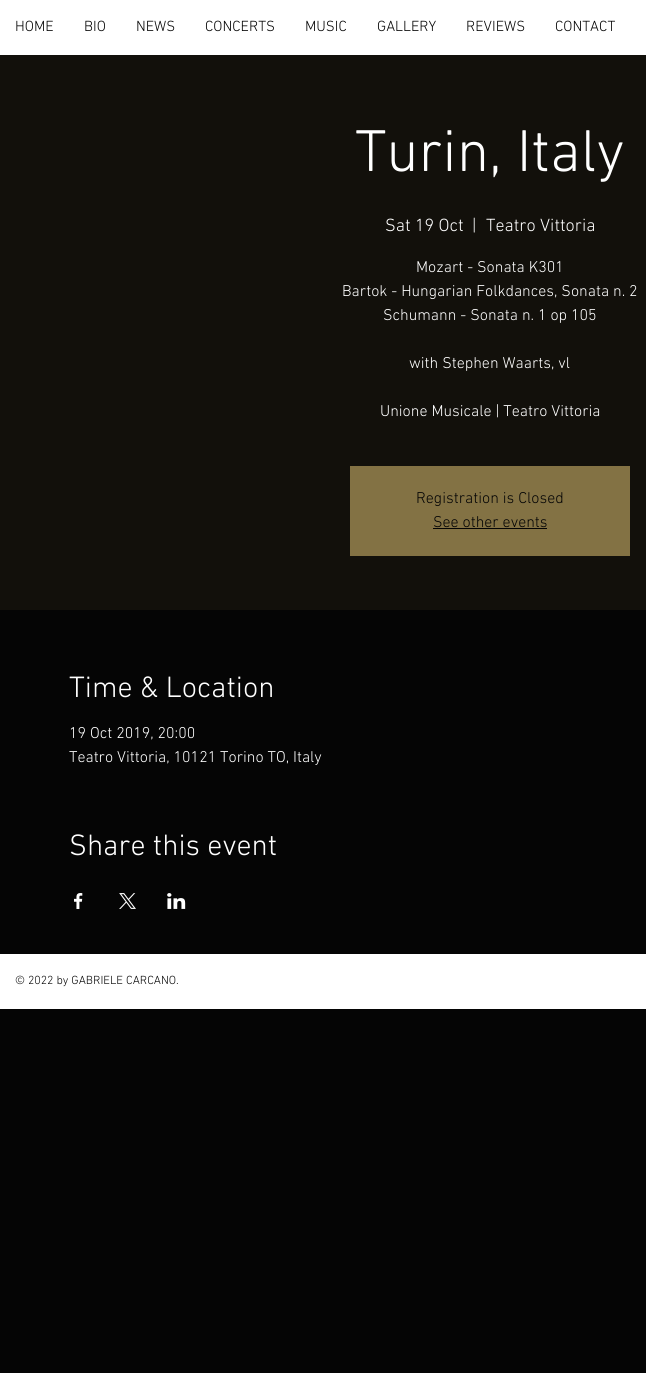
import math
import cairo

surface = cairo.ImageSurface(cairo.FORMAT_RGB24, 646, 1373)
cr = cairo.Context(surface)
options = cairo.FontOptions()
options.set_hint_metrics(cairo.HINT_METRICS_OFF)
options.set_hint_style(cairo.HINT_STYLE_NONE)
cr.set_font_options(options)
cr.set_miter_limit(4)


def rgb(code):
    cr.set_source_rgb(*(v / 255 for v in bytes.fromhex(code[-6:])))


def image(path, x, y, w, h):
    cr.save()
    cr.set_source_surface(cairo.ImageSurface.create_from_png(path), x, y)
    cr.rectangle(x, y, w, h)
    cr.fill()
    cr.restore()


rgb("#050505")
cr.paint()
for x, y, w, h, color in [
    (0, 0, 646, 55, "#ffffff"),
    (0, 55, 646, 555, "#12100b"),
    (350, 466, 280, 90, "#837244"),
    (433, 528, 114, 1, "#050505"),
]:
    rgb(color)
    cr.rectangle(x, y, w, h)
    cr.fill()
image("img/1.png", 74, 893, 9, 16)
image("img/2.png", 119, 893, 17, 16)
image("img/3.png", 167, 893, 19, 16)
rgb("#ffffff")
cr.rectangle(0, 954, 646, 55)
cr.fill()
cr.select_font_face("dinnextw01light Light")
cr.set_font_size(15)
rgb("#050505")
for x, y, s in [
    (15, 31, "HOME"),
    (84, 31, "BIO"),
    (136, 31, "NEWS"),
    (205, 31, "CONCERTS"),
    (305, 31, "MUSIC"),
    (377, 31, "GALLERY"),
    (466, 31, "REVIEWS"),
    (555, 31, "CONTACT"),
]:
    cr.move_to(x, y)
    cr.show_text(s)
cr.set_font_size(60)
rgb("#ffffff")
cr.move_to(355, 171)
cr.show_text("Turin, Italy")
cr.set_font_size(18)
for x, y, s in [
    (385, 231, "Sat 19 Oct"),
    (472, 231, "|"),
    (486, 231, "Teatro Vittoria"),
]:
    cr.move_to(x, y)
    cr.show_text(s)
cr.set_font_size(16)
for x, y, s in [
    (416, 272, "Mozart - Sonata K301"),
    (342, 296, "Bartok - Hungarian Folkdances, Sonata n. 2"),
    (383, 320, "Schumann - Sonata n. 1 op 105"),
    (409, 368, "with Stephen Waarts, vl"),
    (380, 416, "Unione Musicale | Teatro Vittoria"),
]:
    cr.move_to(x, y)
    cr.show_text(s)
rgb("#050505")
cr.move_to(416, 503)
cr.show_text("Registration is Closed")
cr.move_to(433, 527)
cr.show_text("See other events")
cr.set_font_size(30)
rgb("#ffffff")
cr.move_to(69, 697)
cr.show_text("Time & Location")
cr.set_font_size(16)
cr.move_to(69, 738)
cr.show_text("19 Oct 2019, 20:00")
cr.move_to(69, 762)
cr.show_text("Teatro Vittoria, 10121 Torino TO, Italy")
cr.set_font_size(30)
cr.move_to(69, 855)
cr.show_text("Share this event")
cr.set_font_size(12)
rgb("#050505")
cr.move_to(15, 984)
cr.show_text("© 2022 by GABRIELE CARCANO.")
surface.write_to_png("page.png")
